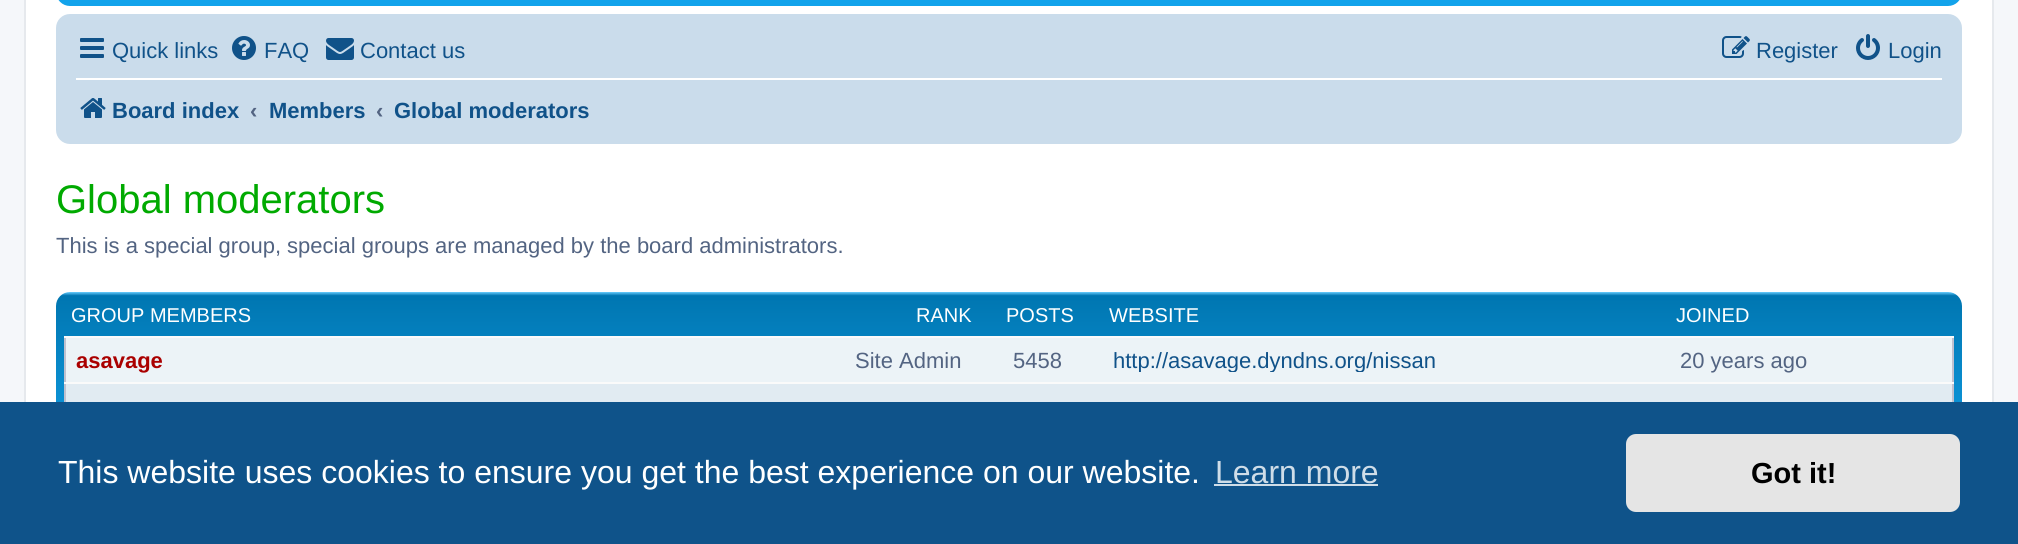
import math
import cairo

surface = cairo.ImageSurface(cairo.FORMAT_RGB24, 2018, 544)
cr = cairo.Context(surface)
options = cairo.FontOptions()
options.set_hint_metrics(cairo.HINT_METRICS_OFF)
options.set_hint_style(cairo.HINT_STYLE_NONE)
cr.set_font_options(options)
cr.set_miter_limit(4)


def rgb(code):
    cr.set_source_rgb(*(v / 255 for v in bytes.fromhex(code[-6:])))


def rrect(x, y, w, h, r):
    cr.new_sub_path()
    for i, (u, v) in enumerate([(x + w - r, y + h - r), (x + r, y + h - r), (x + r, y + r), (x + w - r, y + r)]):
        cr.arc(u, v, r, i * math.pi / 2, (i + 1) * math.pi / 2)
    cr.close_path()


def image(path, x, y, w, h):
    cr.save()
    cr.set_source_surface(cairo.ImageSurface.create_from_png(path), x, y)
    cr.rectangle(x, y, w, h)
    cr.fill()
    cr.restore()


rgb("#f5f7fa")
cr.paint()
rgb("#ffffff")
cr.rectangle(26, 0, 1966, 402)
cr.fill()
cr.rectangle(25, -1, 1968, 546)
rgb("#e6e9ed")
cr.stroke()
gradient = cairo.LinearGradient(1009, -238, 1009, 6)
gradient.add_color_stop_rgba(0, 0.416, 0.808, 1, 1)
gradient.add_color_stop_rgba(0.02, 0, 0.463, 0.694, 1)
gradient.add_color_stop_rgba(0.75, 0.071, 0.639, 0.922, 1)
gradient.add_color_stop_rgba(1, 0.071, 0.639, 0.922, 1)
cr.set_source(gradient)
rrect(56, -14, 1906, 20, 14)
cr.fill()
rgb("#cadceb")
rrect(56, 14, 1906, 130, 14)
cr.fill()
image("img/1.png", 80, 38, 24, 20)
image("img/2.png", 232, 36, 24, 24)
image("img/3.png", 326, 38, 28, 22)
image("img/4.png", 1722, 36, 28, 22)
image("img/5.png", 1856, 34, 24, 26)
rgb("#ffffff")
cr.rectangle(76, 78, 1866, 2)
cr.fill()
image("img/6.png", 80, 98, 26, 20)
gradient = cairo.LinearGradient(1009, 292, 1009, 476)
gradient.add_color_stop_rgba(0, 0.416, 0.808, 1, 1)
gradient.add_color_stop_rgba(0.02, 0, 0.463, 0.694, 1)
gradient.add_color_stop_rgba(1, 0.071, 0.639, 0.922, 1)
cr.set_source(gradient)
rrect(56, 292, 1906, 148, 14)
cr.fill()
for x, y, w, h, color in [
    (66, 384, 1886, 18, "#e1ebf2"),
    (1952, 336, 2, 66, "#bfc1cf"),
    (64, 336, 2, 66, "#bfc1cf"),
    (64, 382, 1890, 2, "#fafafa"),
    (66, 338, 1886, 44, "#ecf3f7"),
    (64, 336, 1890, 2, "#fafafa"),
    (0, 402, 2018, 142, "#0f538a"),
    (1214, 484, 164, 2, "#cfdde8"),
]:
    rgb(color)
    cr.rectangle(x, y, w, h)
    cr.fill()
rgb("#e5e5e5")
rrect(1626, 434, 334, 78, 10)
cr.fill()
cr.select_font_face("Liberation Sans")
cr.set_font_size(22)
rgb("#105289")
for x, y, s in [
    (112, 58, "Quick links"),
    (264, 58, "FAQ"),
    (360, 58, "Contact us"),
    (1756, 58, "Register"),
    (1888, 58, "Login"),
]:
    cr.move_to(x, y)
    cr.show_text(s)
cr.select_font_face("Liberation Sans", cairo.FONT_SLANT_NORMAL, cairo.FONT_WEIGHT_BOLD)
cr.move_to(112, 118)
cr.show_text("Board index")
rgb("#536482")
cr.move_to(250, 118)
cr.show_text("‹")
rgb("#105289")
cr.move_to(269, 118)
cr.show_text("Members")
rgb("#536482")
cr.move_to(376, 118)
cr.show_text("‹")
rgb("#105289")
cr.move_to(394, 118)
cr.show_text("Global moderators")
cr.select_font_face("Liberation Sans")
cr.set_font_size(40)
rgb("#00aa00")
cr.move_to(56, 213)
cr.show_text("Global moderators")
cr.set_font_size(22)
rgb("#536482")
cr.move_to(56, 253)
cr.show_text("This is a special group, special groups are managed by the board administrators.")
cr.set_font_size(20)
rgb("#ffffff")
for x, y, s in [
    (71, 322, "GROUP MEMBERS"),
    (916, 322, "RANK"),
    (1006, 322, "POSTS"),
    (1109, 322, "WEBSITE"),
    (1676, 322, "JOINED"),
]:
    cr.move_to(x, y)
    cr.show_text(s)
cr.select_font_face("Liberation Sans", cairo.FONT_SLANT_NORMAL, cairo.FONT_WEIGHT_BOLD)
cr.set_font_size(22)
rgb("#aa0000")
cr.move_to(76, 368)
cr.show_text("asavage")
cr.select_font_face("Liberation Sans")
rgb("#536482")
cr.move_to(855, 368)
cr.show_text("Site Admin")
cr.move_to(1013, 368)
cr.show_text("5458")
cr.save()
cr.rectangle(1114, 348, 546, 24)
cr.clip()
rgb("#105289")
cr.move_to(1113, 368)
cr.show_text("http://asavage.dyndns.org/nissan")
cr.restore()
cr.move_to(1680, 368)
cr.show_text("20 years ago")
cr.set_font_size(32)
rgb("#ffffff")
cr.move_to(58, 483)
cr.show_text("This website uses cookies to ensure you get the best experience on our website.")
rgb("#cfdde8")
cr.move_to(1215, 483)
cr.show_text("Learn more")
cr.select_font_face("Liberation Sans", cairo.FONT_SLANT_NORMAL, cairo.FONT_WEIGHT_BOLD)
cr.set_font_size(29)
rgb("#000000")
cr.move_to(1751, 483)
cr.show_text("Got it!")
surface.write_to_png("page.png")
